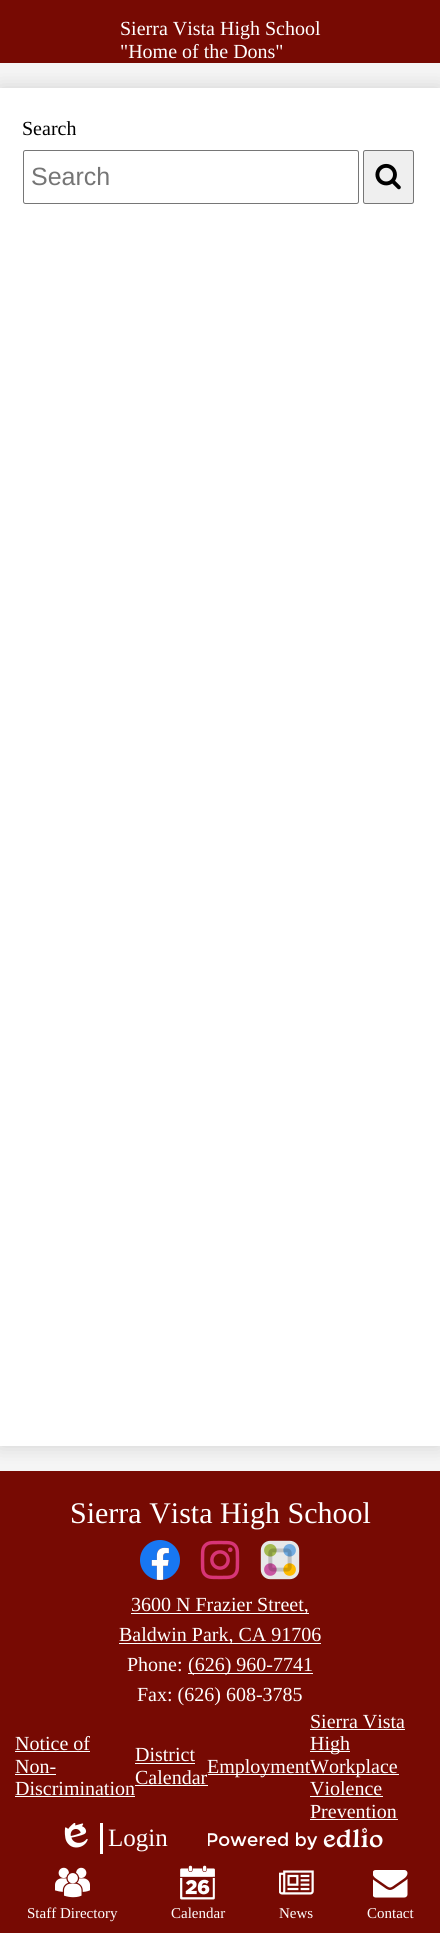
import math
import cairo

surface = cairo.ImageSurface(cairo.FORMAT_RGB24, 440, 1933)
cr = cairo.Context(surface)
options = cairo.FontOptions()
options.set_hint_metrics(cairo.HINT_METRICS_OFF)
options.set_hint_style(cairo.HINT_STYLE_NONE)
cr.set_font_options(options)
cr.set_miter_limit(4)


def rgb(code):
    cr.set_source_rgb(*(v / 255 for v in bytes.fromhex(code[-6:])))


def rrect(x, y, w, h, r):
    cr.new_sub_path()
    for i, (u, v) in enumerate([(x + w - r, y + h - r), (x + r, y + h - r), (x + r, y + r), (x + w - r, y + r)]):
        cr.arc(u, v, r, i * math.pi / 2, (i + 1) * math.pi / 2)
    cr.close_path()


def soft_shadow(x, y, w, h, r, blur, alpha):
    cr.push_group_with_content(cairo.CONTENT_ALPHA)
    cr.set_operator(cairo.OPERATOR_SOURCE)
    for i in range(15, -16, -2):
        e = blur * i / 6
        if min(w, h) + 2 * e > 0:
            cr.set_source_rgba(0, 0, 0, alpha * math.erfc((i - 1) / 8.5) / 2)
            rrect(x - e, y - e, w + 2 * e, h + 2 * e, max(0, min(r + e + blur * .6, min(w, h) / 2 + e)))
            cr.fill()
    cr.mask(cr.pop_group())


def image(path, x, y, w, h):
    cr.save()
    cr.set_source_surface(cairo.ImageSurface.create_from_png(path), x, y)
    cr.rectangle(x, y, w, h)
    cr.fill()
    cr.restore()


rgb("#f5f5f5")
cr.paint()
rgb("#770a03")
cr.rectangle(0, 1471, 440, 462)
cr.fill()
rgb("#000000")
soft_shadow(0, 88, 440, 1358, 0, 10, 0.15)
rgb("#770a03")
cr.rectangle(0, 0, 440, 63)
cr.fill()
rgb("#ffffff")
cr.rectangle(0, 88, 440, 1358)
cr.fill()
rrect(23.5, 150.5, 335, 53, 2)
rgb("#767676")
cr.set_line_width(1)
cr.stroke()
rgb("#efefef")
rrect(363.5, 150.5, 50, 53, 2)
cr.fill_preserve()
rgb("#767676")
cr.stroke()
image("img/1.png", 375, 163, 26, 27)
image("img/2.png", 140, 1540, 40, 40)
image("img/3.png", 200, 1540, 40, 40)
image("img/4.png", 260, 1540, 40, 40)
for x, y, w, h, color in [
    (131, 1613, 178, 1, "#ffffff"),
    (119, 1643, 202, 1, "#ffffff"),
    (188, 1673, 125, 1, "#ffffff"),
    (15, 1751, 75, 1, "#ffffff"),
    (15, 1774, 41, 1, "#ffffff"),
    (15, 1796, 120, 1, "#ffffff"),
    (135, 1763, 60, 1, "#ffffff"),
    (135, 1785, 73, 1, "#ffffff"),
    (208, 1774, 102, 1, "#ffffff"),
    (310, 1729, 95, 1, "#ffffff"),
    (310, 1751, 40, 1, "#ffffff"),
    (310, 1774, 89, 1, "#ffffff"),
    (310, 1796, 73, 1, "#ffffff"),
    (310, 1819, 88, 1, "#ffffff"),
    (100, 1823, 3, 31, "#ffffff"),
]:
    rgb(color)
    cr.rectangle(x, y, w, h)
    cr.fill()
image("img/5.png", 64, 1823, 24, 25)
image("img/6.png", 208, 1827, 175, 23)
image("img/7.png", 55, 1867, 35, 31)
image("img/8.png", 180, 1865, 35, 35)
image("img/9.png", 279, 1870, 35, 25)
image("img/10.png", 373, 1870, 35, 28)
cr.select_font_face("Liberation Serif")
cr.set_font_size(20)
cr.move_to(120, 35)
cr.show_text("Sierra Vista High School")
cr.move_to(120, 58)
cr.show_text("\"Home of the Dons\"")
rgb("#000000")
cr.move_to(22, 135)
cr.show_text("Search")
cr.select_font_face("Liberation Sans")
cr.set_font_size(25)
rgb("#757575")
cr.move_to(31, 185)
cr.show_text("Search")
cr.select_font_face("Liberation Serif")
cr.set_font_size(30)
rgb("#ffffff")
cr.move_to(70, 1523)
cr.show_text("Sierra Vista High School")
cr.set_font_size(20)
for x, y, s in [
    (131, 1611, "3600 N Frazier Street,"),
    (119, 1641, "Baldwin Park, CA 91706"),
    (127, 1671, "Phone:"),
    (188, 1671, "(626) 960-7741"),
    (137, 1701, "Fax: (626) 608-3785"),
    (15, 1750, "Notice of"),
    (15, 1773, "Non-"),
    (15, 1795, "Discrimination"),
    (135, 1761, "District"),
    (135, 1784, "Calendar"),
    (207, 1773, "Employment"),
    (310, 1728, "Sierra Vista"),
    (310, 1750, "High"),
    (310, 1773, "Workplace"),
    (310, 1795, "Violence"),
    (310, 1818, "Prevention"),
]:
    cr.move_to(x, y)
    cr.show_text(s)
cr.set_font_size(25)
cr.move_to(108, 1846)
cr.show_text("Login")
cr.set_font_size(15)
for x, y, s in [
    (27, 1918, "Staff Directory"),
    (171, 1918, "Calendar"),
    (279, 1918, "News"),
    (367, 1918, "Contact"),
]:
    cr.move_to(x, y)
    cr.show_text(s)
surface.write_to_png("page.png")
